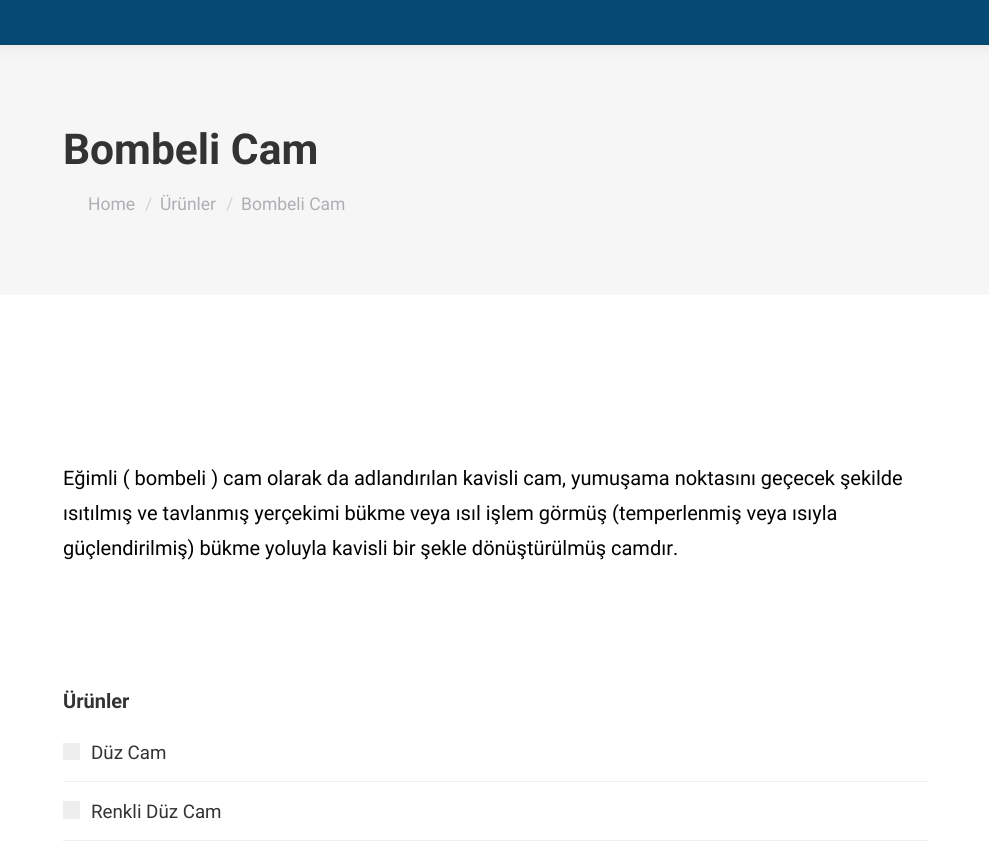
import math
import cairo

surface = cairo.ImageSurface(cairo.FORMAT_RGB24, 989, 858)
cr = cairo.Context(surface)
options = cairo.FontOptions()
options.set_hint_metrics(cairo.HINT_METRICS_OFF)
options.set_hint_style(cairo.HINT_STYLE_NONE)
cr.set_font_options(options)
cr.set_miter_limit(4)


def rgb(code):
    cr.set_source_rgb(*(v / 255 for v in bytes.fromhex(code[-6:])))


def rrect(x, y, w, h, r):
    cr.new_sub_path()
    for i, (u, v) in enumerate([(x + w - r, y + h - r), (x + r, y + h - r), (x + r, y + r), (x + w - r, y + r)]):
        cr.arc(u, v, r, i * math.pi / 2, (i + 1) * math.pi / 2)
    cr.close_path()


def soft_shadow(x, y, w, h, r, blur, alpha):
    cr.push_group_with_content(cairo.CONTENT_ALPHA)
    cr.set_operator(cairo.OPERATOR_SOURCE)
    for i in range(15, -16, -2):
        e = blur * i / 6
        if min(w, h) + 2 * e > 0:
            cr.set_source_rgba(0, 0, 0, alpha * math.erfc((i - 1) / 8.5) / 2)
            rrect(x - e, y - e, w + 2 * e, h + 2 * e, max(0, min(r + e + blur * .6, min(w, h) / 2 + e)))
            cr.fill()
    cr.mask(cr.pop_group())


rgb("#ffffff")
cr.paint()
rgb("#f6f6f6")
cr.rectangle(0, 45, 989, 250)
cr.fill()
rgb("#000000")
soft_shadow(-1, -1, 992, 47, 0, 9.5, 0.07)
for x, y, w, h, color in [
    (0, 0, 989, 44, "#044a74"),
    (0, 44, 989, 1, "#09476d"),
    (63, 743, 17, 17, "#eeeeef"),
    (63, 781, 865, 1, "#eeeeef"),
    (63, 801, 17, 18, "#eeeeef"),
    (63, 840, 865, 1, "#eeeeef"),
]:
    rgb(color)
    cr.rectangle(x, y, w, h)
    cr.fill()
cr.select_font_face("Roboto", cairo.FONT_SLANT_NORMAL, cairo.FONT_WEIGHT_BOLD)
cr.set_font_size(42.5)
rgb("#333333")
cr.move_to(63, 164)
cr.show_text("Bombeli Cam")
cr.select_font_face("Roboto")
cr.set_font_size(17.5)
rgb("#adafb3")
cr.move_to(88, 210)
cr.show_text("Home")
rgb("#d2d3d5")
cr.move_to(145, 210)
cr.show_text("/")
rgb("#adafb3")
cr.move_to(160, 210)
cr.show_text("Ürünler")
rgb("#d2d3d5")
cr.move_to(226, 210)
cr.show_text("/")
rgb("#adafb3")
cr.move_to(241, 210)
cr.show_text("Bombeli Cam")
cr.set_font_size(20)
rgb("#000000")
for x, y, s in [
    (63, 485, "Eğimli ( bombeli ) cam olarak da adlandırılan kavisli cam, yumuşama noktasını geçecek şekilde"),
    (63, 520, "ısıtılmış ve tavlanmış yerçekimi bükme veya ısıl işlem görmüş (temperlenmiş veya ısıyla"),
    (63, 555, "güçlendirilmiş) bükme yoluyla kavisli bir şekle dönüştürülmüş camdır."),
]:
    cr.move_to(x, y)
    cr.show_text(s)
cr.select_font_face("Roboto", cairo.FONT_SLANT_NORMAL, cairo.FONT_WEIGHT_BOLD)
rgb("#333333")
cr.move_to(63, 708)
cr.show_text("Ürünler")
cr.select_font_face("Roboto")
cr.set_font_size(18.75)
cr.move_to(91, 759)
cr.show_text("Düz Cam")
cr.move_to(91, 818)
cr.show_text("Renkli Düz Cam")
surface.write_to_png("page.png")
